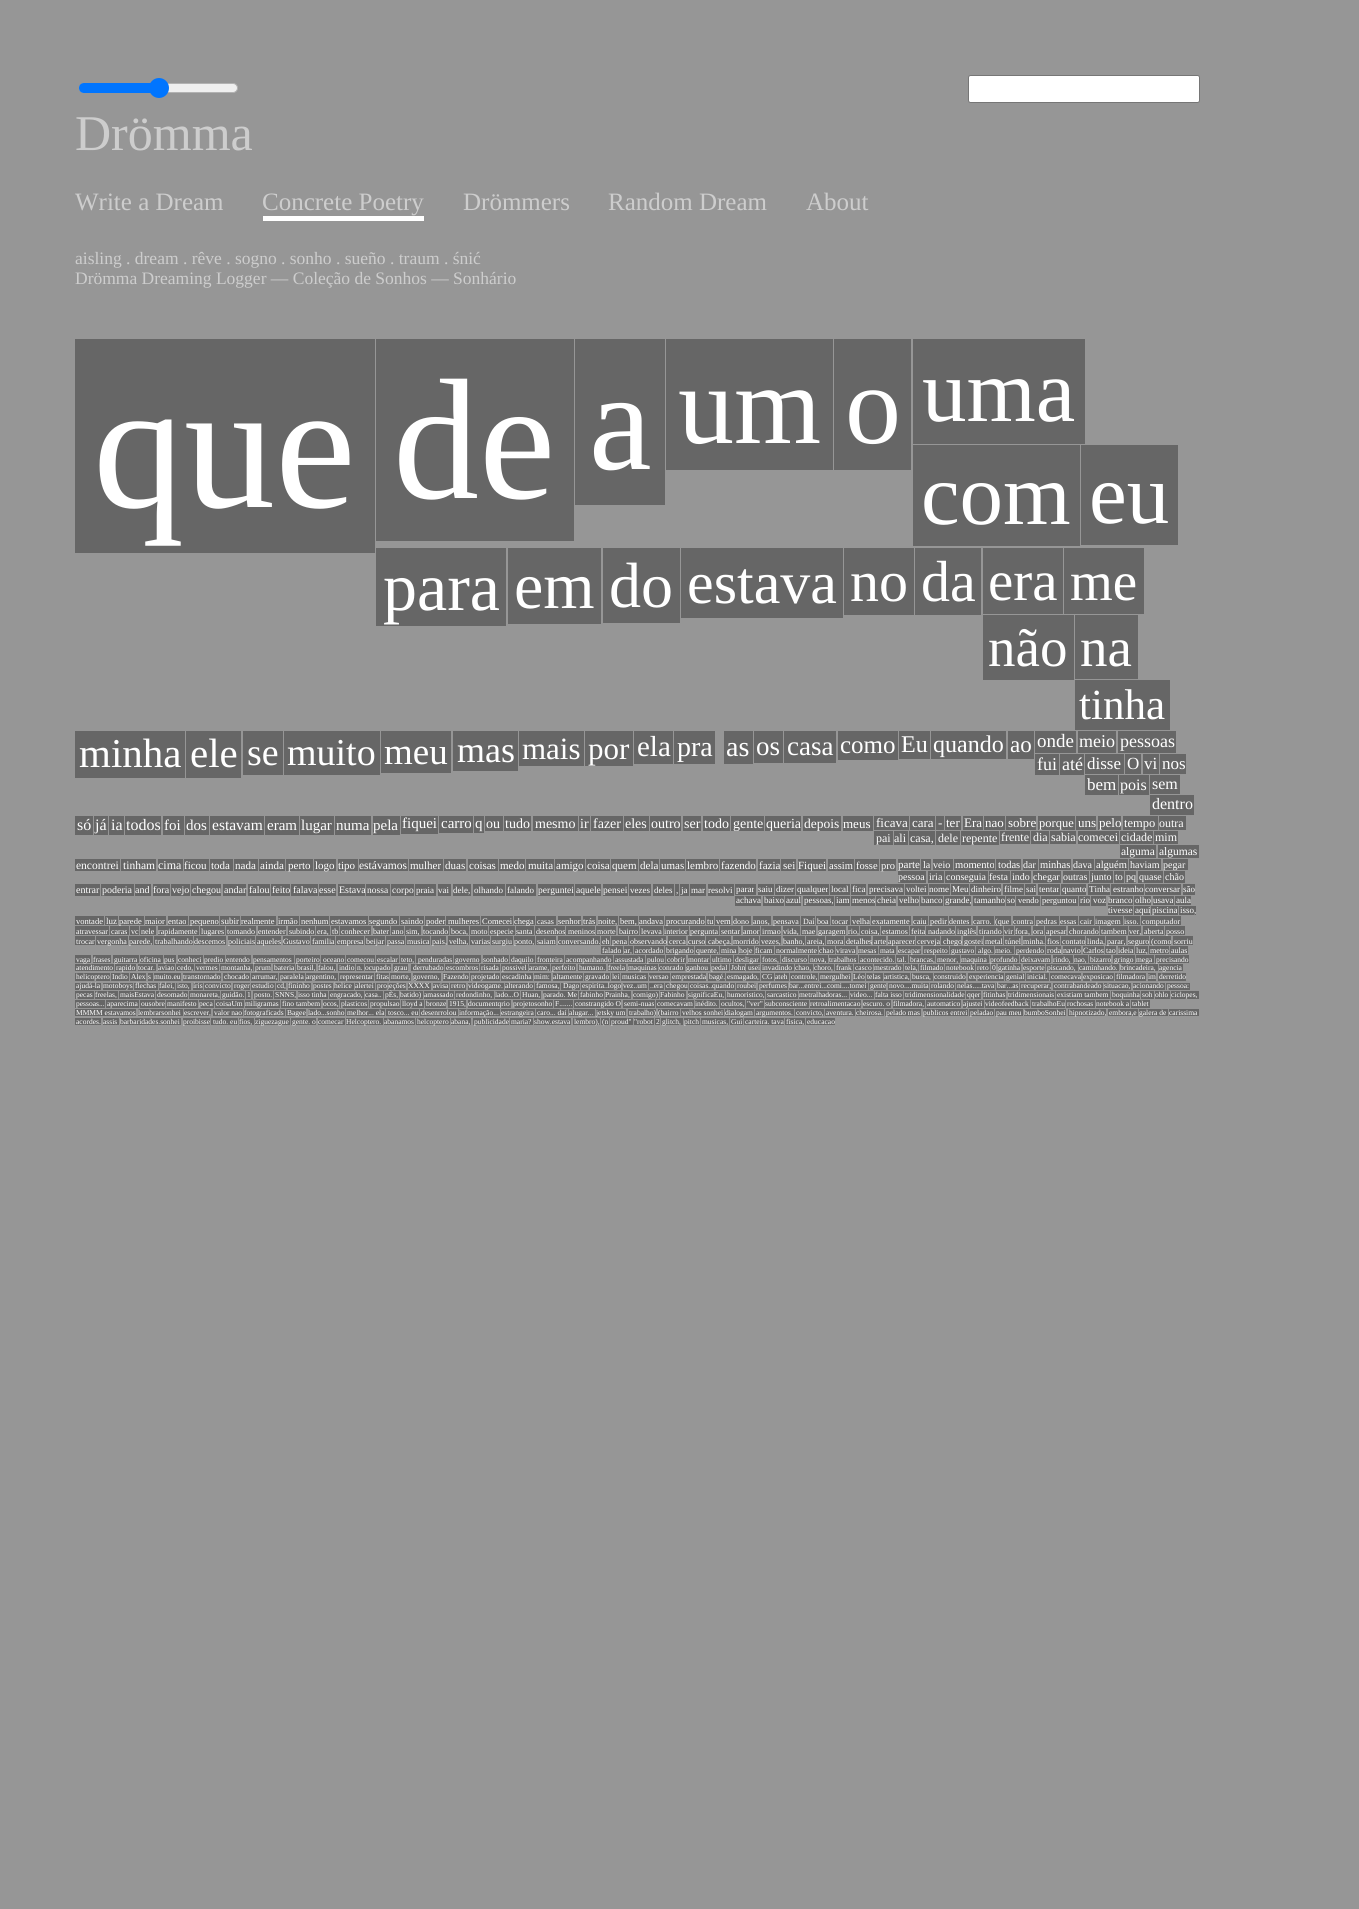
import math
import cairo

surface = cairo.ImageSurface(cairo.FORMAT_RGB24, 1359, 1909)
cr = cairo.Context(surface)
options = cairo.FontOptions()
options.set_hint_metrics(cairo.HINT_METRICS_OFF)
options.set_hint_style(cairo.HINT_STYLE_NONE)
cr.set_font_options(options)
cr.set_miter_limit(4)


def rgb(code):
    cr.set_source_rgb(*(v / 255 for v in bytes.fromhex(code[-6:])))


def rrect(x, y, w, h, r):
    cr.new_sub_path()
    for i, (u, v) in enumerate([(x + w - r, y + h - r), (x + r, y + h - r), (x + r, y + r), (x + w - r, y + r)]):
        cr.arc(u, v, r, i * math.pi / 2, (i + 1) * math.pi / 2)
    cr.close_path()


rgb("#969696")
cr.paint()
rgb("#efefef")
rrect(79.5, 83.5, 158, 9, 4.5)
cr.fill_preserve()
rgb("#b2b2b2")
cr.set_line_width(1)
cr.stroke()
rgb("#0075ff")
cr.new_path()
cr.move_to(84, 83)
cr.line_to(159, 83)
cr.line_to(159, 93)
cr.line_to(84, 93)
cr.curve_to(81, 93, 79, 91, 79, 88)
cr.curve_to(79, 85, 81, 83, 84, 83)
cr.close_path()
cr.fill()
cr.arc(159, 88, 10, 0, 2 * math.pi)
cr.fill()
rgb("#ffffff")
rrect(968.5, 75.5, 231, 27, 2)
cr.fill_preserve()
rgb("#767676")
cr.stroke()
for x, y, w, h, color in [
    (263, 216, 161, 5, "#ffffff"),
    (75, 339, 300, 214, "#666666"),
    (376, 339, 198, 202, "#666666"),
    (575, 339, 90, 166, "#666666"),
    (666, 339, 167, 131, "#666666"),
    (834, 339, 77, 131, "#666666"),
    (913, 339, 172, 105, "#666666"),
    (1081, 445, 97, 100, "#666666"),
    (913, 445, 167, 101, "#666666"),
    (376, 548, 130, 78, "#666666"),
    (508, 548, 93, 76, "#666666"),
    (603, 548, 77, 75, "#666666"),
    (681, 548, 162, 70, "#666666"),
    (844, 548, 70, 67, "#666666"),
    (915, 548, 66, 67, "#666666"),
    (983, 548, 80, 66, "#666666"),
    (1064, 548, 80, 66, "#666666"),
    (983, 615, 91, 65, "#666666"),
    (1075, 615, 63, 64, "#666666"),
    (1075, 680, 95, 50, "#666666"),
    (75, 731, 110, 47, "#666666"),
    (186, 731, 55, 47, "#666666"),
    (243, 731, 40, 44, "#666666"),
    (284, 731, 96, 44, "#666666"),
    (381, 731, 70, 42, "#666666"),
    (453, 731, 65, 40, "#666666"),
    (519, 731, 65, 35, "#666666"),
    (585, 731, 48, 35, "#666666"),
    (634, 731, 39, 33, "#666666"),
    (674, 731, 41, 33, "#666666"),
    (724, 731, 29, 33, "#666666"),
    (754, 731, 29, 32, "#666666"),
    (784, 731, 52, 32, "#666666"),
    (838, 731, 60, 29, "#666666"),
    (899, 731, 31, 28, "#666666"),
    (931, 731, 75, 28, "#666666"),
    (1008, 731, 26, 28, "#666666"),
    (1035, 731, 41, 22, "#666666"),
    (1078, 731, 38, 22, "#666666"),
    (1118, 731, 58, 22, "#666666"),
    (1035, 754, 24, 21, "#666666"),
    (1060, 754, 24, 21, "#666666"),
    (1085, 754, 39, 20, "#666666"),
    (1125, 754, 16, 20, "#666666"),
    (1143, 754, 16, 20, "#666666"),
    (1160, 754, 26, 20, "#666666"),
    (1085, 775, 33, 20, "#666666"),
    (1119, 775, 30, 20, "#666666"),
    (1150, 775, 30, 19, "#666666"),
    (1150, 795, 44, 20, "#666666"),
    (75, 816, 18, 19, "#666666"),
    (94, 816, 14, 19, "#666666"),
    (109, 816, 15, 19, "#666666"),
    (125, 816, 36, 19, "#666666"),
    (163, 816, 21, 19, "#666666"),
    (185, 816, 24, 19, "#666666"),
    (210, 816, 54, 19, "#666666"),
    (265, 816, 34, 19, "#666666"),
    (300, 816, 34, 19, "#666666"),
    (335, 816, 36, 19, "#666666"),
    (373, 816, 27, 19, "#666666"),
    (401, 816, 37, 18, "#666666"),
    (439, 816, 34, 17, "#666666"),
    (474, 816, 10, 17, "#666666"),
    (485, 816, 18, 15, "#666666"),
    (504, 816, 27, 15, "#666666"),
    (533, 816, 45, 15, "#666666"),
    (579, 816, 11, 15, "#666666"),
    (591, 816, 32, 15, "#666666"),
    (624, 816, 25, 15, "#666666"),
    (650, 816, 31, 15, "#666666"),
    (683, 816, 18, 15, "#666666"),
    (703, 816, 27, 15, "#666666"),
    (731, 816, 33, 15, "#666666"),
    (765, 816, 36, 15, "#666666"),
    (803, 816, 38, 15, "#666666"),
    (843, 816, 30, 15, "#666666"),
    (874, 816, 35, 14, "#666666"),
    (910, 816, 25, 14, "#666666"),
    (936, 816, 8, 14, "#666666"),
    (945, 816, 16, 14, "#666666"),
    (963, 816, 20, 14, "#666666"),
    (984, 816, 21, 14, "#666666"),
    (1006, 816, 30, 14, "#666666"),
    (1038, 816, 37, 14, "#666666"),
    (1076, 816, 20, 14, "#666666"),
    (1098, 816, 23, 14, "#666666"),
    (1123, 816, 35, 14, "#666666"),
    (1159, 816, 27, 14, "#666666"),
    (874, 831, 19, 14, "#666666"),
    (894, 831, 14, 14, "#666666"),
    (909, 831, 26, 14, "#666666"),
    (936, 831, 24, 14, "#666666"),
    (961, 831, 38, 14, "#666666"),
    (1000, 831, 30, 13, "#666666"),
    (1031, 831, 18, 13, "#666666"),
    (1050, 831, 26, 13, "#666666"),
    (1078, 831, 41, 13, "#666666"),
    (1120, 831, 33, 13, "#666666"),
    (1154, 831, 24, 13, "#666666"),
    (1120, 845, 36, 13, "#666666"),
    (1158, 845, 41, 13, "#666666"),
    (75, 859, 45, 12, "#666666"),
    (121, 859, 35, 12, "#666666"),
    (158, 859, 25, 12, "#666666"),
    (184, 859, 25, 12, "#666666"),
    (210, 859, 23, 12, "#666666"),
    (234, 859, 24, 12, "#666666"),
    (259, 859, 26, 12, "#666666"),
    (286, 859, 27, 12, "#666666"),
    (314, 859, 22, 12, "#666666"),
    (338, 859, 20, 12, "#666666"),
    (359, 859, 49, 12, "#666666"),
    (409, 859, 34, 12, "#666666"),
    (444, 859, 22, 12, "#666666"),
    (468, 859, 30, 12, "#666666"),
    (499, 859, 26, 12, "#666666"),
    (526, 859, 28, 12, "#666666"),
    (555, 859, 30, 12, "#666666"),
    (586, 859, 24, 12, "#666666"),
    (611, 859, 27, 12, "#666666"),
    (639, 859, 20, 12, "#666666"),
    (660, 859, 25, 12, "#666666"),
    (686, 859, 33, 12, "#666666"),
    (720, 859, 36, 12, "#666666"),
    (758, 859, 22, 12, "#666666"),
    (781, 859, 15, 12, "#666666"),
    (798, 859, 28, 12, "#666666"),
    (828, 859, 26, 12, "#666666"),
    (855, 859, 24, 12, "#666666"),
    (880, 859, 16, 12, "#666666"),
    (898, 859, 22, 11, "#666666"),
    (921, 859, 10, 11, "#666666"),
    (933, 859, 20, 11, "#666666"),
    (954, 859, 41, 11, "#666666"),
    (996, 859, 25, 11, "#666666"),
    (1023, 859, 15, 11, "#666666"),
    (1039, 859, 32, 11, "#666666"),
    (1073, 859, 21, 11, "#666666"),
    (1095, 859, 33, 11, "#666666"),
    (1129, 859, 32, 11, "#666666"),
    (1163, 859, 25, 11, "#666666"),
    (898, 871, 28, 12, "#666666"),
    (928, 871, 16, 12, "#666666"),
    (945, 871, 43, 12, "#666666"),
    (989, 871, 21, 12, "#666666"),
    (1011, 871, 20, 12, "#666666"),
    (1033, 871, 28, 12, "#666666"),
    (1063, 871, 26, 12, "#666666"),
    (1090, 871, 23, 12, "#666666"),
    (1114, 871, 10, 12, "#666666"),
    (1125, 871, 11, 12, "#666666"),
    (1138, 871, 25, 12, "#666666"),
    (1164, 871, 21, 12, "#666666"),
    (75, 884, 25, 12, "#666666"),
    (101, 884, 33, 12, "#666666"),
    (135, 884, 16, 12, "#666666"),
    (153, 884, 17, 12, "#666666"),
    (171, 884, 19, 12, "#666666"),
    (191, 884, 30, 12, "#666666"),
    (223, 884, 23, 12, "#666666"),
    (248, 884, 22, 12, "#666666"),
    (271, 884, 19, 12, "#666666"),
    (291, 884, 27, 12, "#666666"),
    (319, 884, 17, 12, "#666666"),
    (338, 884, 27, 12, "#666666"),
    (366, 884, 24, 12, "#666666"),
    (391, 884, 23, 12, "#666666"),
    (415, 884, 21, 12, "#666666"),
    (438, 884, 13, 12, "#666666"),
    (453, 884, 18, 12, "#666666"),
    (473, 884, 32, 12, "#666666"),
    (506, 884, 30, 12, "#666666"),
    (538, 884, 36, 12, "#666666"),
    (575, 884, 26, 12, "#666666"),
    (603, 884, 25, 12, "#666666"),
    (629, 884, 22, 12, "#666666"),
    (653, 884, 21, 12, "#666666"),
    (675, 884, 4, 12, "#666666"),
    (680, 884, 9, 12, "#666666"),
    (690, 884, 16, 12, "#666666"),
    (708, 884, 26, 12, "#666666"),
    (735, 884, 21, 11, "#666666"),
    (758, 884, 16, 11, "#666666"),
    (775, 884, 20, 11, "#666666"),
    (796, 884, 33, 11, "#666666"),
    (830, 884, 20, 11, "#666666"),
    (851, 884, 15, 11, "#666666"),
    (868, 884, 36, 11, "#666666"),
    (905, 884, 23, 11, "#666666"),
    (929, 884, 21, 11, "#666666"),
    (951, 884, 18, 11, "#666666"),
    (970, 884, 31, 11, "#666666"),
    (1003, 884, 21, 11, "#666666"),
    (1025, 884, 11, 11, "#666666"),
    (1038, 884, 22, 11, "#666666"),
    (1061, 884, 25, 11, "#666666"),
    (1088, 884, 22, 11, "#666666"),
    (1111, 884, 33, 11, "#666666"),
    (1145, 884, 36, 11, "#666666"),
    (1183, 884, 12, 11, "#666666"),
    (735, 896, 26, 10, "#666666"),
    (763, 896, 21, 10, "#666666"),
    (785, 896, 16, 10, "#666666"),
    (803, 896, 31, 10, "#666666"),
    (835, 896, 15, 10, "#666666"),
    (851, 896, 24, 10, "#666666"),
    (876, 896, 20, 10, "#666666"),
    (898, 896, 21, 10, "#666666"),
    (920, 896, 23, 10, "#666666"),
    (944, 896, 27, 10, "#666666"),
    (973, 896, 32, 10, "#666666"),
    (1006, 896, 9, 10, "#666666"),
    (1016, 896, 24, 10, "#666666"),
    (1041, 896, 37, 10, "#666666"),
    (1079, 896, 11, 10, "#666666"),
    (1091, 896, 15, 10, "#666666"),
    (1108, 896, 25, 9, "#666666"),
    (1134, 896, 17, 9, "#666666"),
    (1153, 896, 21, 9, "#666666"),
    (1175, 896, 16, 9, "#666666"),
    (1108, 906, 25, 9, "#666666"),
    (1134, 906, 16, 9, "#666666"),
    (1151, 906, 27, 9, "#666666"),
    (1179, 906, 17, 9, "#666666"),
    (75, 916, 29, 9, "#666666"),
    (105, 916, 13, 9, "#666666"),
    (119, 916, 25, 9, "#666666"),
    (145, 916, 21, 9, "#666666"),
    (168, 916, 20, 9, "#666666"),
    (189, 916, 30, 9, "#666666"),
    (220, 916, 20, 9, "#666666"),
    (241, 916, 35, 9, "#666666"),
    (278, 916, 21, 9, "#666666"),
    (300, 916, 29, 9, "#666666"),
    (330, 916, 38, 9, "#666666"),
    (369, 916, 30, 9, "#666666"),
    (400, 916, 24, 9, "#666666"),
    (425, 916, 20, 9, "#666666"),
    (446, 916, 34, 9, "#666666"),
    (481, 916, 32, 9, "#666666"),
    (514, 916, 21, 9, "#666666"),
    (536, 916, 20, 9, "#666666"),
    (558, 916, 23, 9, "#666666"),
    (583, 916, 13, 9, "#666666"),
    (598, 916, 20, 9, "#666666"),
    (619, 916, 19, 9, "#666666"),
    (639, 916, 25, 9, "#666666"),
    (665, 916, 40, 9, "#666666"),
    (706, 916, 8, 9, "#666666"),
    (715, 916, 16, 9, "#666666"),
    (733, 916, 18, 9, "#666666"),
    (753, 916, 18, 9, "#666666"),
    (773, 916, 27, 9, "#666666"),
    (801, 916, 14, 9, "#666666"),
    (816, 916, 14, 9, "#666666"),
    (831, 916, 19, 9, "#666666"),
    (851, 916, 19, 9, "#666666"),
    (871, 916, 40, 9, "#666666"),
    (913, 916, 15, 9, "#666666"),
    (929, 916, 19, 9, "#666666"),
    (949, 916, 22, 9, "#666666"),
    (973, 916, 21, 9, "#666666"),
    (995, 916, 16, 9, "#666666"),
    (1013, 916, 21, 9, "#666666"),
    (1035, 916, 24, 9, "#666666"),
    (1060, 916, 18, 9, "#666666"),
    (1079, 916, 15, 9, "#666666"),
    (1095, 916, 28, 9, "#666666"),
    (1124, 916, 16, 9, "#666666"),
    (1141, 916, 40, 9, "#666666"),
    (75, 926, 34, 9, "#666666"),
    (110, 926, 19, 9, "#666666"),
    (130, 926, 9, 9, "#666666"),
    (140, 926, 16, 9, "#666666"),
    (158, 926, 41, 9, "#666666"),
    (200, 926, 25, 9, "#666666"),
    (226, 926, 30, 9, "#666666"),
    (258, 926, 28, 9, "#666666"),
    (288, 926, 27, 9, "#666666"),
    (316, 926, 14, 9, "#666666"),
    (331, 926, 8, 9, "#666666"),
    (340, 926, 31, 9, "#666666"),
    (373, 926, 17, 9, "#666666"),
    (391, 926, 13, 9, "#666666"),
    (405, 926, 16, 9, "#666666"),
    (423, 926, 26, 9, "#666666"),
    (450, 926, 19, 9, "#666666"),
    (470, 926, 18, 9, "#666666"),
    (489, 926, 26, 9, "#666666"),
    (516, 926, 18, 9, "#666666"),
    (535, 926, 30, 9, "#666666"),
    (566, 926, 29, 9, "#666666"),
    (596, 926, 20, 9, "#666666"),
    (618, 926, 21, 9, "#666666"),
    (640, 926, 23, 9, "#666666"),
    (664, 926, 25, 9, "#666666"),
    (690, 926, 29, 9, "#666666"),
    (720, 926, 21, 9, "#666666"),
    (743, 926, 17, 9, "#666666"),
    (761, 926, 20, 9, "#666666"),
    (783, 926, 17, 9, "#666666"),
    (801, 926, 15, 9, "#666666"),
    (818, 926, 28, 9, "#666666"),
    (848, 926, 11, 9, "#666666"),
    (860, 926, 20, 9, "#666666"),
    (881, 926, 28, 9, "#666666"),
    (910, 926, 15, 9, "#666666"),
    (926, 926, 29, 9, "#666666"),
    (956, 926, 20, 9, "#666666"),
    (978, 926, 25, 9, "#666666"),
    (1004, 926, 10, 9, "#666666"),
    (1015, 926, 16, 9, "#666666"),
    (1033, 926, 11, 9, "#666666"),
    (1045, 926, 21, 9, "#666666"),
    (1068, 926, 31, 9, "#666666"),
    (1100, 926, 28, 9, "#666666"),
    (1129, 926, 12, 9, "#666666"),
    (1143, 926, 21, 9, "#666666"),
    (1165, 926, 20, 9, "#666666"),
    (75, 936, 20, 9, "#666666"),
    (96, 936, 32, 9, "#666666"),
    (129, 936, 24, 9, "#666666"),
    (154, 936, 39, 9, "#666666"),
    (194, 936, 32, 9, "#666666"),
    (228, 936, 27, 9, "#666666"),
    (256, 936, 25, 9, "#666666"),
    (283, 936, 27, 9, "#666666"),
    (311, 936, 24, 9, "#666666"),
    (336, 936, 28, 9, "#666666"),
    (365, 936, 20, 9, "#666666"),
    (386, 936, 19, 9, "#666666"),
    (406, 936, 24, 9, "#666666"),
    (431, 936, 15, 9, "#666666"),
    (448, 936, 21, 9, "#666666"),
    (470, 936, 20, 9, "#666666"),
    (491, 936, 22, 9, "#666666"),
    (514, 936, 21, 9, "#666666"),
    (536, 936, 20, 9, "#666666"),
    (558, 936, 42, 9, "#666666"),
    (601, 936, 9, 9, "#666666"),
    (611, 936, 17, 9, "#666666"),
    (629, 936, 37, 9, "#666666"),
    (668, 936, 18, 9, "#666666"),
    (688, 936, 17, 9, "#666666"),
    (706, 936, 25, 9, "#666666"),
    (733, 936, 26, 9, "#666666"),
    (760, 936, 21, 9, "#666666"),
    (783, 936, 22, 9, "#666666"),
    (806, 936, 19, 9, "#666666"),
    (826, 936, 18, 9, "#666666"),
    (845, 936, 26, 9, "#666666"),
    (873, 936, 13, 9, "#666666"),
    (888, 936, 27, 9, "#666666"),
    (916, 936, 24, 9, "#666666"),
    (941, 936, 20, 9, "#666666"),
    (963, 936, 20, 9, "#666666"),
    (984, 936, 19, 9, "#666666"),
    (1004, 936, 17, 9, "#666666"),
    (1023, 936, 22, 9, "#666666"),
    (1046, 936, 14, 9, "#666666"),
    (1061, 936, 24, 9, "#666666"),
    (1086, 936, 19, 9, "#666666"),
    (1106, 936, 20, 9, "#666666"),
    (1128, 936, 21, 9, "#666666"),
    (1150, 936, 21, 9, "#666666"),
    (1173, 936, 20, 9, "#666666"),
    (601, 946, 22, 8, "#666666"),
    (624, 946, 9, 8, "#666666"),
    (634, 946, 30, 8, "#666666"),
    (665, 946, 29, 8, "#666666"),
    (695, 946, 24, 8, "#666666"),
    (720, 946, 18, 8, "#666666"),
    (739, 946, 15, 8, "#666666"),
    (755, 946, 19, 8, "#666666"),
    (775, 946, 43, 8, "#666666"),
    (819, 946, 16, 8, "#666666"),
    (836, 946, 20, 8, "#666666"),
    (858, 946, 20, 8, "#666666"),
    (879, 946, 17, 8, "#666666"),
    (898, 946, 23, 8, "#666666"),
    (923, 946, 26, 8, "#666666"),
    (950, 946, 25, 8, "#666666"),
    (976, 946, 18, 8, "#666666"),
    (995, 946, 19, 8, "#666666"),
    (1015, 946, 30, 8, "#666666"),
    (1046, 946, 15, 8, "#666666"),
    (1063, 946, 18, 8, "#666666"),
    (1083, 946, 21, 8, "#666666"),
    (1105, 946, 11, 8, "#666666"),
    (1118, 946, 16, 8, "#666666"),
    (1135, 946, 13, 8, "#666666"),
    (1149, 946, 20, 8, "#666666"),
    (1170, 946, 18, 8, "#666666"),
    (75, 955, 16, 8, "#666666"),
    (93, 955, 18, 8, "#666666"),
    (113, 955, 26, 8, "#666666"),
    (140, 955, 23, 8, "#666666"),
    (164, 955, 12, 8, "#666666"),
    (178, 955, 25, 8, "#666666"),
    (204, 955, 21, 8, "#666666"),
    (226, 955, 25, 8, "#666666"),
    (253, 955, 41, 8, "#666666"),
    (295, 955, 25, 8, "#666666"),
    (321, 955, 24, 8, "#666666"),
    (346, 955, 29, 8, "#666666"),
    (376, 955, 23, 8, "#666666"),
    (400, 955, 15, 8, "#666666"),
    (416, 955, 37, 8, "#666666"),
    (454, 955, 27, 8, "#666666"),
    (483, 955, 26, 8, "#666666"),
    (510, 955, 25, 8, "#666666"),
    (536, 955, 28, 8, "#666666"),
    (565, 955, 48, 8, "#666666"),
    (614, 955, 31, 8, "#666666"),
    (646, 955, 19, 8, "#666666"),
    (666, 955, 20, 8, "#666666"),
    (688, 955, 22, 8, "#666666"),
    (711, 955, 22, 8, "#666666"),
    (734, 955, 26, 8, "#666666"),
    (761, 955, 19, 8, "#666666"),
    (781, 955, 27, 8, "#666666"),
    (809, 955, 19, 8, "#666666"),
    (829, 955, 29, 8, "#666666"),
    (859, 955, 36, 8, "#666666"),
    (896, 955, 12, 8, "#666666"),
    (909, 955, 26, 8, "#666666"),
    (936, 955, 24, 8, "#666666"),
    (961, 955, 28, 8, "#666666"),
    (990, 955, 29, 8, "#666666"),
    (1020, 955, 31, 8, "#666666"),
    (1053, 955, 20, 8, "#666666"),
    (1074, 955, 14, 8, "#666666"),
    (1089, 955, 22, 8, "#666666"),
    (1113, 955, 22, 8, "#666666"),
    (1136, 955, 18, 8, "#666666"),
    (1155, 955, 34, 8, "#666666"),
    (75, 964, 39, 7, "#666666"),
    (115, 964, 21, 7, "#666666"),
    (138, 964, 18, 7, "#666666"),
    (158, 964, 17, 7, "#666666"),
    (176, 964, 18, 7, "#666666"),
    (195, 964, 24, 7, "#666666"),
    (220, 964, 33, 7, "#666666"),
    (254, 964, 17, 7, "#666666"),
    (273, 964, 22, 7, "#666666"),
    (296, 964, 20, 7, "#666666"),
    (318, 964, 18, 7, "#666666"),
    (338, 964, 17, 7, "#666666"),
    (356, 964, 8, 7, "#666666"),
    (365, 964, 26, 7, "#666666"),
    (393, 964, 15, 7, "#666666"),
    (411, 964, 33, 7, "#666666"),
    (445, 964, 34, 7, "#666666"),
    (480, 964, 20, 7, "#666666"),
    (501, 964, 27, 7, "#666666"),
    (529, 964, 21, 7, "#666666"),
    (551, 964, 25, 7, "#666666"),
    (578, 964, 28, 7, "#666666"),
    (608, 964, 18, 7, "#666666"),
    (628, 964, 30, 7, "#666666"),
    (659, 964, 26, 7, "#666666"),
    (686, 964, 24, 7, "#666666"),
    (711, 964, 18, 7, "#666666"),
    (730, 964, 15, 7, "#666666"),
    (746, 964, 14, 7, "#666666"),
    (761, 964, 33, 7, "#666666"),
    (795, 964, 18, 7, "#666666"),
    (814, 964, 20, 7, "#666666"),
    (835, 964, 18, 7, "#666666"),
    (854, 964, 19, 7, "#666666"),
    (874, 964, 29, 7, "#666666"),
    (904, 964, 14, 7, "#666666"),
    (919, 964, 25, 7, "#666666"),
    (945, 964, 30, 7, "#666666"),
    (976, 964, 14, 7, "#666666"),
    (991, 964, 5, 7, "#666666"),
    (998, 964, 23, 7, "#666666"),
    (1023, 964, 22, 7, "#666666"),
    (1046, 964, 32, 7, "#666666"),
    (1079, 964, 40, 7, "#666666"),
    (1120, 964, 38, 7, "#666666"),
    (1159, 964, 24, 7, "#666666"),
    (75, 973, 35, 8, "#666666"),
    (111, 973, 18, 8, "#666666"),
    (130, 973, 16, 8, "#666666"),
    (148, 973, 5, 8, "#666666"),
    (154, 973, 27, 8, "#666666"),
    (183, 973, 38, 8, "#666666"),
    (223, 973, 27, 8, "#666666"),
    (251, 973, 27, 8, "#666666"),
    (279, 973, 26, 8, "#666666"),
    (306, 973, 32, 8, "#666666"),
    (339, 973, 35, 8, "#666666"),
    (375, 973, 14, 8, "#666666"),
    (390, 973, 21, 8, "#666666"),
    (413, 973, 28, 8, "#666666"),
    (443, 973, 26, 8, "#666666"),
    (470, 973, 30, 8, "#666666"),
    (501, 973, 32, 8, "#666666"),
    (534, 973, 17, 8, "#666666"),
    (553, 973, 30, 8, "#666666"),
    (584, 973, 26, 8, "#666666"),
    (611, 973, 9, 8, "#666666"),
    (621, 973, 27, 8, "#666666"),
    (649, 973, 21, 8, "#666666"),
    (671, 973, 35, 8, "#666666"),
    (708, 973, 17, 8, "#666666"),
    (726, 973, 34, 8, "#666666"),
    (761, 973, 13, 8, "#666666"),
    (775, 973, 14, 8, "#666666"),
    (790, 973, 28, 8, "#666666"),
    (819, 973, 32, 8, "#666666"),
    (853, 973, 12, 8, "#666666"),
    (866, 973, 17, 8, "#666666"),
    (884, 973, 26, 8, "#666666"),
    (911, 973, 22, 8, "#666666"),
    (934, 973, 32, 8, "#666666"),
    (968, 973, 36, 8, "#666666"),
    (1005, 973, 20, 8, "#666666"),
    (1026, 973, 23, 8, "#666666"),
    (1050, 973, 31, 8, "#666666"),
    (1083, 973, 31, 8, "#666666"),
    (1115, 973, 31, 8, "#666666"),
    (1148, 973, 8, 8, "#666666"),
    (1158, 973, 28, 8, "#666666"),
    (75, 983, 26, 7, "#666666"),
    (103, 983, 30, 7, "#666666"),
    (134, 983, 24, 7, "#666666"),
    (159, 983, 16, 7, "#666666"),
    (176, 983, 15, 7, "#666666"),
    (193, 983, 10, 7, "#666666"),
    (204, 983, 27, 7, "#666666"),
    (233, 983, 17, 7, "#666666"),
    (251, 983, 24, 7, "#666666"),
    (276, 983, 10, 7, "#666666"),
    (288, 983, 23, 7, "#666666"),
    (313, 983, 20, 7, "#666666"),
    (334, 983, 20, 7, "#666666"),
    (355, 983, 20, 7, "#666666"),
    (376, 983, 30, 7, "#666666"),
    (408, 983, 23, 7, "#666666"),
    (433, 983, 16, 7, "#666666"),
    (450, 983, 16, 7, "#666666"),
    (468, 983, 36, 7, "#666666"),
    (505, 983, 29, 7, "#666666"),
    (535, 983, 25, 7, "#666666"),
    (561, 983, 19, 7, "#666666"),
    (581, 983, 40, 7, "#666666"),
    (623, 983, 25, 7, "#666666"),
    (649, 983, 15, 7, "#666666"),
    (665, 983, 23, 7, "#666666"),
    (689, 983, 46, 7, "#666666"),
    (736, 983, 20, 7, "#666666"),
    (758, 983, 30, 7, "#666666"),
    (789, 983, 79, 7, "#666666"),
    (869, 983, 17, 7, "#666666"),
    (888, 983, 41, 7, "#666666"),
    (930, 983, 25, 7, "#666666"),
    (956, 983, 39, 7, "#666666"),
    (996, 983, 23, 7, "#666666"),
    (1020, 983, 31, 7, "#666666"),
    (1053, 983, 50, 7, "#666666"),
    (1104, 983, 27, 7, "#666666"),
    (1133, 983, 32, 7, "#666666"),
    (1166, 983, 24, 7, "#666666"),
    (75, 991, 19, 8, "#666666"),
    (95, 991, 23, 8, "#666666"),
    (119, 991, 36, 8, "#666666"),
    (156, 991, 32, 8, "#666666"),
    (189, 991, 31, 8, "#666666"),
    (221, 991, 24, 8, "#666666"),
    (246, 991, 5, 8, "#666666"),
    (253, 991, 20, 8, "#666666"),
    (274, 991, 22, 8, "#666666"),
    (298, 991, 30, 8, "#666666"),
    (329, 991, 35, 8, "#666666"),
    (365, 991, 18, 8, "#666666"),
    (384, 991, 15, 8, "#666666"),
    (400, 991, 23, 8, "#666666"),
    (424, 991, 30, 8, "#666666"),
    (455, 991, 39, 8, "#666666"),
    (495, 991, 25, 8, "#666666"),
    (521, 991, 20, 8, "#666666"),
    (543, 991, 35, 8, "#666666"),
    (579, 991, 25, 8, "#666666"),
    (605, 991, 26, 8, "#666666"),
    (633, 991, 26, 8, "#666666"),
    (660, 991, 26, 8, "#666666"),
    (688, 991, 37, 8, "#666666"),
    (726, 991, 39, 8, "#666666"),
    (766, 991, 32, 8, "#666666"),
    (799, 991, 50, 8, "#666666"),
    (850, 991, 24, 8, "#666666"),
    (875, 991, 28, 8, "#666666"),
    (904, 991, 61, 8, "#666666"),
    (966, 991, 15, 8, "#666666"),
    (983, 991, 23, 8, "#666666"),
    (1008, 991, 47, 8, "#666666"),
    (1056, 991, 54, 8, "#666666"),
    (1111, 991, 29, 8, "#666666"),
    (1141, 991, 13, 8, "#666666"),
    (1155, 991, 15, 8, "#666666"),
    (1171, 991, 28, 8, "#666666"),
    (75, 1000, 30, 8, "#666666"),
    (106, 1000, 33, 8, "#666666"),
    (140, 1000, 25, 8, "#666666"),
    (166, 1000, 32, 8, "#666666"),
    (199, 1000, 15, 8, "#666666"),
    (215, 1000, 29, 8, "#666666"),
    (245, 1000, 35, 8, "#666666"),
    (281, 1000, 40, 8, "#666666"),
    (323, 1000, 16, 8, "#666666"),
    (340, 1000, 28, 8, "#666666"),
    (369, 1000, 31, 8, "#666666"),
    (401, 1000, 23, 8, "#666666"),
    (425, 1000, 21, 8, "#666666"),
    (448, 1000, 18, 8, "#666666"),
    (468, 1000, 43, 8, "#666666"),
    (513, 1000, 40, 8, "#666666"),
    (554, 1000, 19, 8, "#666666"),
    (574, 1000, 47, 8, "#666666"),
    (623, 1000, 32, 8, "#666666"),
    (656, 1000, 38, 8, "#666666"),
    (695, 1000, 24, 8, "#666666"),
    (720, 1000, 25, 8, "#666666"),
    (746, 1000, 18, 8, "#666666"),
    (765, 1000, 44, 8, "#666666"),
    (810, 1000, 51, 8, "#666666"),
    (863, 1000, 28, 8, "#666666"),
    (893, 1000, 32, 8, "#666666"),
    (926, 1000, 35, 8, "#666666"),
    (963, 1000, 21, 8, "#666666"),
    (985, 1000, 45, 8, "#666666"),
    (1031, 1000, 34, 8, "#666666"),
    (1066, 1000, 29, 8, "#666666"),
    (1096, 1000, 34, 8, "#666666"),
    (1131, 1000, 19, 8, "#666666"),
    (75, 1009, 61, 7, "#666666"),
    (138, 1009, 45, 7, "#666666"),
    (184, 1009, 27, 7, "#666666"),
    (213, 1009, 30, 7, "#666666"),
    (244, 1009, 41, 7, "#666666"),
    (286, 1009, 20, 7, "#666666"),
    (308, 1009, 37, 7, "#666666"),
    (346, 1009, 39, 7, "#666666"),
    (386, 1009, 33, 7, "#666666"),
    (420, 1009, 38, 7, "#666666"),
    (459, 1009, 41, 7, "#666666"),
    (501, 1009, 34, 7, "#666666"),
    (536, 1009, 32, 7, "#666666"),
    (569, 1009, 26, 7, "#666666"),
    (596, 1009, 30, 7, "#666666"),
    (628, 1009, 28, 7, "#666666"),
    (658, 1009, 22, 7, "#666666"),
    (681, 1009, 43, 7, "#666666"),
    (725, 1009, 29, 7, "#666666"),
    (755, 1009, 39, 7, "#666666"),
    (795, 1009, 29, 7, "#666666"),
    (825, 1009, 30, 7, "#666666"),
    (856, 1009, 28, 7, "#666666"),
    (885, 1009, 36, 7, "#666666"),
    (923, 1009, 45, 7, "#666666"),
    (969, 1009, 25, 7, "#666666"),
    (995, 1009, 28, 7, "#666666"),
    (1024, 1009, 42, 7, "#666666"),
    (1068, 1009, 38, 7, "#666666"),
    (1108, 1009, 30, 7, "#666666"),
    (1139, 1009, 29, 7, "#666666"),
    (1169, 1009, 30, 7, "#666666"),
    (75, 1018, 26, 7, "#666666"),
    (103, 1018, 16, 7, "#666666"),
    (120, 1018, 61, 7, "#666666"),
    (183, 1018, 27, 7, "#666666"),
    (211, 1018, 27, 7, "#666666"),
    (239, 1018, 15, 7, "#666666"),
    (255, 1018, 35, 7, "#666666"),
    (291, 1018, 25, 7, "#666666"),
    (318, 1018, 27, 7, "#666666"),
    (346, 1018, 37, 7, "#666666"),
    (384, 1018, 31, 7, "#666666"),
    (416, 1018, 34, 7, "#666666"),
    (451, 1018, 20, 7, "#666666"),
    (473, 1018, 36, 7, "#666666"),
    (510, 1018, 23, 7, "#666666"),
    (534, 1018, 37, 7, "#666666"),
    (573, 1018, 27, 7, "#666666"),
    (601, 1018, 8, 7, "#666666"),
    (610, 1018, 23, 7, "#666666"),
    (634, 1018, 20, 7, "#666666"),
    (655, 1018, 5, 7, "#666666"),
    (661, 1018, 22, 7, "#666666"),
    (684, 1018, 16, 7, "#666666"),
    (701, 1018, 28, 7, "#666666"),
    (730, 1018, 13, 7, "#666666"),
    (744, 1018, 40, 7, "#666666"),
    (785, 1018, 20, 7, "#666666"),
    (806, 1018, 29, 7, "#666666"),
]:
    rgb(color)
    cr.rectangle(x, y, w, h)
    cr.fill()
cr.select_font_face("Liberation Serif")
cr.set_font_size(50)
rgb("#cdcdcd")
cr.move_to(75, 150)
cr.show_text("Drömma")
cr.set_font_size(25)
for x, y, s in [
    (75, 210, "Write a Dream"),
    (262, 210, "Concrete Poetry"),
    (463, 210, "Drömmers"),
    (608, 210, "Random Dream"),
    (806, 210, "About"),
]:
    cr.move_to(x, y)
    cr.show_text(s)
cr.set_font_size(17.5)
cr.move_to(75, 264)
cr.show_text("aisling . dream . rêve . sogno . sonho . sueño . traum . śnić")
cr.move_to(75, 284)
cr.show_text("Drömma Dreaming Logger — Coleção de Sonhos — Sonhário")
cr.set_font_size(182)
rgb("#ffffff")
cr.move_to(93, 507)
cr.show_text("que")
cr.set_font_size(172)
cr.move_to(393, 498)
cr.show_text("de")
cr.set_font_size(141)
cr.move_to(589, 469)
cr.show_text("a")
cr.set_font_size(112)
cr.move_to(678, 443)
cr.show_text("um")
cr.move_to(845, 443)
cr.show_text("o")
cr.set_font_size(89)
cr.move_to(922, 421)
cr.show_text("uma")
cr.set_font_size(85)
cr.move_to(1089, 523)
cr.show_text("eu")
cr.set_font_size(87)
cr.move_to(921, 524)
cr.show_text("com")
cr.set_font_size(68)
cr.move_to(383, 610)
cr.show_text("para")
cr.set_font_size(66)
cr.move_to(514, 608)
cr.show_text("em")
cr.set_font_size(64)
cr.move_to(609, 607)
cr.show_text("do")
cr.set_font_size(60)
cr.move_to(687, 603)
cr.show_text("estava")
cr.set_font_size(58)
cr.move_to(850, 601)
cr.show_text("no")
cr.move_to(921, 601)
cr.show_text("da")
cr.set_font_size(57)
cr.move_to(988, 600)
cr.show_text("era")
cr.set_font_size(55)
for x, y, s in [
    (1070, 600, "me"),
    (988, 666, "não"),
    (1080, 666, "na"),
]:
    cr.move_to(x, y)
    cr.show_text(s)
cr.set_font_size(43)
cr.move_to(1079, 719)
cr.show_text("tinha")
cr.set_font_size(41)
cr.move_to(79, 767)
cr.show_text("minha")
cr.move_to(190, 767)
cr.show_text("ele")
cr.set_font_size(38)
cr.move_to(247, 765)
cr.show_text("se")
cr.move_to(287, 765)
cr.show_text("muito")
cr.set_font_size(37)
cr.move_to(384, 764)
cr.show_text("meu")
cr.set_font_size(36)
cr.move_to(457, 762)
cr.show_text("mas")
cr.set_font_size(31)
cr.move_to(522, 759)
cr.show_text("mais")
cr.move_to(588, 759)
cr.show_text("por")
cr.set_font_size(29)
cr.move_to(637, 756)
cr.show_text("ela")
cr.set_font_size(28)
cr.move_to(677, 756)
cr.show_text("pra")
cr.move_to(726, 756)
cr.show_text("as")
cr.set_font_size(27)
cr.move_to(756, 755)
cr.show_text("os")
cr.move_to(787, 755)
cr.show_text("casa")
cr.set_font_size(25)
cr.move_to(840, 753)
cr.show_text("como")
cr.set_font_size(24)
cr.move_to(901, 752)
cr.show_text("Eu")
cr.move_to(933, 752)
cr.show_text("quando")
cr.set_font_size(23)
cr.move_to(1010, 752)
cr.show_text("ao")
cr.set_font_size(19)
cr.move_to(1037, 747)
cr.show_text("onde")
cr.set_font_size(18)
for x, y, s in [
    (1079, 747, "meio"),
    (1120, 747, "pessoas"),
    (1037, 770, "fui"),
    (1062, 770, "até"),
]:
    cr.move_to(x, y)
    cr.show_text(s)
cr.set_font_size(17)
for x, y, s in [
    (1087, 769, "disse"),
    (1127, 769, "O"),
    (1144, 769, "vi"),
    (1162, 769, "nos"),
    (1087, 790, "bem"),
]:
    cr.move_to(x, y)
    cr.show_text(s)
cr.set_font_size(16)
for x, y, s in [
    (1120, 790, "pois"),
    (1152, 789, "sem"),
    (1152, 809, "dentro"),
    (77, 830, "só"),
    (95, 830, "já"),
    (111, 830, "ia"),
    (126, 830, "todos"),
]:
    cr.move_to(x, y)
    cr.show_text(s)
cr.set_font_size(15)
cr.move_to(164, 830)
cr.show_text("foi")
cr.move_to(186, 830)
cr.show_text("dos")
cr.set_font_size(15.5)
cr.move_to(212, 830)
cr.show_text("estavam")
cr.set_font_size(15)
for x, y, s in [
    (267, 830, "eram"),
    (301, 830, "lugar"),
    (336, 830, "numa"),
    (373, 830, "pela"),
    (402, 828, "fiquei"),
    (441, 828, "carro"),
    (475, 828, "q"),
]:
    cr.move_to(x, y)
    cr.show_text(s)
cr.set_font_size(14)
for x, y, s in [
    (486, 828, "ou"),
    (505, 828, "tudo"),
    (535, 828, "mesmo"),
    (580, 828, "ir"),
    (593, 828, "fazer"),
    (625, 828, "eles"),
    (651, 828, "outro"),
    (684, 828, "ser"),
    (704, 828, "todo"),
    (733, 828, "gente"),
    (766, 828, "queria"),
]:
    cr.move_to(x, y)
    cr.show_text(s)
cr.set_font_size(13.5)
cr.move_to(804, 828)
cr.show_text("depois")
cr.set_font_size(13)
for x, y, s in [
    (843, 828, "meus"),
    (876, 827, "ficava"),
    (912, 827, "cara"),
    (938, 827, "-"),
    (946, 827, "ter"),
    (964, 827, "Era"),
    (985, 827, "nao"),
    (1008, 827, "sobre"),
]:
    cr.move_to(x, y)
    cr.show_text(s)
cr.set_font_size(12.5)
cr.move_to(1039, 827)
cr.show_text("porque")
cr.set_font_size(13)
cr.move_to(1078, 827)
cr.show_text("uns")
cr.move_to(1099, 827)
cr.show_text("pelo")
cr.set_font_size(12.5)
cr.move_to(1124, 827)
cr.show_text("tempo")
cr.set_font_size(12)
for x, y, s in [
    (1159, 827, "outra"),
    (876, 842, "pai"),
    (894, 842, "ali"),
    (910, 842, "casa,"),
    (938, 842, "dele"),
    (962, 842, "repente"),
    (1001, 841, "frente"),
    (1033, 841, "dia"),
    (1051, 841, "sabia"),
    (1078, 841, "comecei"),
    (1121, 841, "cidade"),
    (1155, 841, "mim"),
]:
    cr.move_to(x, y)
    cr.show_text(s)
cr.set_font_size(11.5)
for x, y, s in [
    (1121, 855, "alguma"),
    (1159, 855, "algumas"),
    (76, 869, "encontrei"),
    (123, 869, "tinham"),
]:
    cr.move_to(x, y)
    cr.show_text(s)
cr.set_font_size(12)
cr.move_to(158, 869)
cr.show_text("cima")
cr.set_font_size(11)
for x, y, s in [
    (184, 869, "ficou"),
    (211, 869, "toda"),
    (235, 869, "nada"),
    (260, 869, "ainda"),
    (288, 869, "perto"),
    (315, 869, "logo"),
    (338, 869, "tipo"),
]:
    cr.move_to(x, y)
    cr.show_text(s)
cr.set_font_size(11.5)
cr.move_to(359, 869)
cr.show_text("estávamos")
cr.set_font_size(11)
for x, y, s in [
    (410, 869, "mulher"),
    (445, 869, "duas"),
    (469, 869, "coisas"),
    (500, 869, "medo"),
    (528, 869, "muita"),
    (556, 869, "amigo"),
    (587, 869, "coisa"),
    (612, 869, "quem"),
    (640, 869, "dela"),
    (661, 869, "umas"),
    (687, 869, "lembro"),
    (721, 869, "fazendo"),
    (759, 869, "fazia"),
    (783, 869, "sei"),
    (798, 869, "Fiquei"),
]:
    cr.move_to(x, y)
    cr.show_text(s)
cr.set_font_size(10.5)
for x, y, s in [
    (829, 869, "assim"),
    (856, 869, "fosse"),
    (881, 869, "pro"),
]:
    cr.move_to(x, y)
    cr.show_text(s)
cr.set_font_size(11)
cr.move_to(898, 868)
cr.show_text("parte")
cr.set_font_size(10)
cr.move_to(923, 868)
cr.show_text("la")
cr.move_to(933, 868)
cr.show_text("veio")
cr.set_font_size(10.5)
cr.move_to(955, 868)
cr.show_text("momento")
cr.move_to(998, 868)
cr.show_text("todas")
cr.set_font_size(10)
cr.move_to(1023, 868)
cr.show_text("dar")
cr.set_font_size(10.5)
cr.move_to(1040, 868)
cr.show_text("minhas")
cr.set_font_size(10)
cr.move_to(1073, 868)
cr.show_text("dava")
cr.set_font_size(10.5)
cr.move_to(1096, 868)
cr.show_text("alguém")
cr.set_font_size(10)
for x, y, s in [
    (1130, 868, "haviam"),
    (1163, 868, "pegar"),
    (898, 880, "pessoa"),
    (929, 880, "iria"),
    (946, 880, "conseguia"),
    (989, 880, "festa"),
    (1012, 880, "indo"),
    (1033, 880, "chegar"),
    (1063, 880, "outras"),
    (1091, 880, "junto"),
    (1115, 880, "to"),
    (1126, 880, "pq"),
    (1139, 880, "quase"),
    (1165, 880, "chão"),
    (76, 893, "entrar"),
    (102, 893, "poderia"),
    (135, 893, "and"),
    (153, 893, "fora"),
    (172, 893, "vejo"),
    (192, 893, "chegou"),
    (224, 893, "andar"),
    (249, 893, "falou"),
    (272, 893, "feito"),
    (293, 893, "falava"),
    (319, 893, "esse"),
    (339, 893, "Estava"),
]:
    cr.move_to(x, y)
    cr.show_text(s)
cr.set_font_size(9.5)
cr.move_to(367, 893)
cr.show_text("nossa")
cr.move_to(392, 893)
cr.show_text("corpo")
cr.set_font_size(9)
for x, y, s in [
    (416, 893, "praia"),
    (438, 893, "vai"),
    (453, 893, "dele,"),
    (474, 893, "olhando"),
    (507, 893, "falando"),
]:
    cr.move_to(x, y)
    cr.show_text(s)
cr.set_font_size(9.5)
for x, y, s in [
    (538, 893, "perguntei"),
    (576, 893, "aquele"),
    (603, 893, "pensei"),
]:
    cr.move_to(x, y)
    cr.show_text(s)
cr.set_font_size(9)
for x, y, s in [
    (630, 893, "vezes"),
    (654, 893, "deles"),
    (676, 893, ","),
    (681, 893, "ja"),
    (691, 893, "mar"),
    (708, 893, "resolvi"),
    (736, 892, "parar"),
    (758, 892, "saiu"),
    (776, 892, "dizer"),
    (797, 892, "qualquer"),
    (831, 892, "local"),
    (852, 892, "fica"),
    (869, 892, "precisava"),
    (906, 892, "voltei"),
    (929, 892, "nome"),
    (952, 892, "Meu"),
    (971, 892, "dinheiro"),
    (1004, 892, "filme"),
    (1026, 892, "sai"),
    (1039, 892, "tentar"),
    (1062, 892, "quanto"),
    (1089, 892, "Tinha"),
    (1113, 892, "estranho"),
    (1145, 892, "conversar"),
    (1183, 892, "são"),
    (736, 903, "achava"),
    (764, 903, "baixo"),
    (786, 903, "azul"),
    (804, 903, "pessoas,"),
    (836, 903, "iam"),
    (852, 903, "menos"),
    (877, 903, "cheia"),
    (899, 903, "velho"),
    (921, 903, "banco"),
    (945, 903, "grande,"),
    (974, 903, "tamanho"),
    (1007, 903, "so"),
]:
    cr.move_to(x, y)
    cr.show_text(s)
cr.set_font_size(8.5)
cr.move_to(1018, 903)
cr.show_text("vendo")
cr.move_to(1042, 903)
cr.show_text("perguntou")
cr.set_font_size(9)
for x, y, s in [
    (1080, 903, "rio"),
    (1093, 903, "voz"),
    (1108, 903, "branco"),
    (1135, 903, "olho"),
    (1153, 903, "usava"),
    (1176, 903, "aula"),
    (1108, 913, "tivesse"),
    (1135, 913, "aqui"),
    (1152, 913, "piscina"),
    (1180, 913, "isso,"),
]:
    cr.move_to(x, y)
    cr.show_text(s)
cr.set_font_size(8.5)
cr.move_to(76, 924)
cr.show_text("vontade")
cr.set_font_size(9)
cr.move_to(106, 924)
cr.show_text("luz")
cr.set_font_size(8.5)
for x, y, s in [
    (119, 924, "parede"),
    (145, 924, "maior"),
    (168, 924, "entao"),
    (190, 924, "pequeno"),
]:
    cr.move_to(x, y)
    cr.show_text(s)
cr.set_font_size(9)
cr.move_to(221, 924)
cr.show_text("subir")
cr.set_font_size(8.5)
for x, y, s in [
    (241, 924, "realmente"),
    (278, 924, "irmão"),
    (301, 924, "nenhum"),
    (331, 924, "estavamos"),
    (369, 924, "segundo"),
    (401, 924, "saindo"),
    (426, 924, "poder"),
    (448, 924, "mulheres"),
    (482, 924, "Comecei"),
    (514, 924, "chega"),
]:
    cr.move_to(x, y)
    cr.show_text(s)
cr.set_font_size(8)
cr.move_to(537, 924)
cr.show_text("casas")
cr.set_font_size(8.5)
for x, y, s in [
    (558, 924, "senhor"),
    (583, 924, "trás"),
    (598, 924, "noite,"),
    (620, 924, "bem,"),
    (639, 924, "andava"),
    (666, 924, "procurando"),
    (707, 924, "tu"),
    (716, 924, "vem"),
]:
    cr.move_to(x, y)
    cr.show_text(s)
cr.set_font_size(8)
for x, y, s in [
    (733, 924, "dono"),
    (753, 924, "anos,"),
    (773, 924, "pensava"),
    (803, 924, "Daí"),
    (817, 924, "boa"),
    (832, 924, "tocar"),
]:
    cr.move_to(x, y)
    cr.show_text(s)
cr.set_font_size(8.25)
for x, y, s in [
    (852, 924, "velha"),
    (872, 924, "exatamente"),
    (913, 924, "caiu"),
    (930, 924, "pedir"),
]:
    cr.move_to(x, y)
    cr.show_text(s)
cr.set_font_size(8)
for x, y, s in [
    (949, 924, "dentes"),
    (973, 924, "carro."),
    (995, 924, "(que"),
    (1013, 924, "contra"),
    (1036, 924, "pedras"),
    (1060, 924, "essas"),
    (1080, 924, "cair"),
    (1095, 924, "imagem"),
    (1124, 924, "isso."),
    (1142, 924, "computador"),
    (76, 934, "atravessar"),
    (111, 934, "caras"),
    (131, 934, "vc"),
    (141, 934, "nele"),
    (158, 934, "rapidamente"),
    (201, 934, "lugares"),
    (227, 934, "tomando"),
    (258, 934, "entender"),
    (289, 934, "subindo"),
    (317, 934, "era,"),
    (332, 934, "tb"),
    (341, 934, "conhecer"),
    (373, 934, "bater"),
    (392, 934, "ano"),
    (406, 934, "sim,"),
    (423, 934, "tocando"),
    (451, 934, "boca,"),
    (471, 934, "moto"),
    (490, 934, "especie"),
    (516, 934, "santa"),
    (536, 934, "desenhos"),
    (568, 934, "meninos"),
    (597, 934, "morte"),
    (619, 934, "bairro"),
    (641, 934, "levava"),
    (664, 934, "interior"),
    (690, 934, "pergunta"),
    (721, 934, "sentar"),
    (743, 934, "amor"),
    (762, 934, "irmao"),
    (783, 934, "vida,"),
    (802, 934, "mae"),
    (818, 934, "garagem"),
    (848, 934, "rio,"),
    (861, 934, "coisa,"),
    (882, 934, "estamos"),
    (911, 934, "feita"),
    (928, 934, "nadando"),
    (957, 934, "inglês"),
    (979, 934, "tirando"),
    (1004, 934, "vir"),
    (1015, 934, "fora,"),
    (1033, 934, "ora"),
    (1046, 934, "apesar"),
    (1069, 934, "chorando"),
    (1101, 934, "tambem"),
    (1129, 934, "ver,"),
    (1144, 934, "aberta"),
    (1166, 934, "posso"),
    (76, 944, "trocar"),
    (97, 944, "vergonha"),
    (129, 944, "parede,"),
    (155, 944, "trabalhando"),
    (194, 944, "descemos"),
    (228, 944, "policiais"),
    (257, 944, "aqueles"),
    (283, 944, "Gustavo"),
    (312, 944, "familia"),
    (337, 944, "empresa"),
    (366, 944, "beijar"),
    (387, 944, "passa"),
    (407, 944, "musica"),
    (432, 944, "pais,"),
    (449, 944, "velha,"),
    (471, 944, "varias"),
    (492, 944, "surgiu"),
    (514, 944, "ponto,"),
    (537, 944, "saiam"),
    (558, 944, "conversando."),
    (602, 944, "eh"),
    (612, 944, "pena"),
    (630, 944, "observando"),
    (669, 944, "cerca"),
    (688, 944, "curso"),
    (708, 944, "cabeça."),
    (733, 944, "morrido"),
    (761, 944, "vezes,"),
    (783, 944, "banho,"),
    (807, 944, "areia,"),
    (827, 944, "mora"),
    (846, 944, "detalhes"),
    (874, 944, "arte"),
    (888, 944, "aparecer"),
    (917, 944, "cerveja"),
    (943, 944, "chego"),
    (964, 944, "gostei"),
    (985, 944, "metal"),
    (1005, 944, "túnel"),
    (1023, 944, "minha."),
    (1047, 944, "fios"),
    (1062, 944, "contato"),
    (1087, 944, "linda,"),
    (1107, 944, "parar,"),
    (1128, 944, "seguro"),
    (1151, 944, "(como"),
    (1174, 944, "sorriu"),
]:
    cr.move_to(x, y)
    cr.show_text(s)
cr.set_font_size(7.75)
for x, y, s in [
    (602, 953, "falado"),
    (624, 953, "ar,"),
    (635, 953, "acordado"),
    (666, 953, "brigando"),
    (696, 953, "quente,"),
    (721, 953, "mina"),
    (739, 953, "hoje"),
    (755, 953, "ficam"),
    (776, 953, "normalmente"),
    (819, 953, "chao"),
    (836, 953, "virava"),
]:
    cr.move_to(x, y)
    cr.show_text(s)
cr.set_font_size(7.5)
for x, y, s in [
    (858, 953, "mesas"),
    (880, 953, "mata"),
    (898, 953, "escapar"),
    (924, 953, "respeito"),
    (951, 953, "gustavo"),
    (978, 953, "algo."),
    (995, 953, "meio."),
    (1016, 953, "perdendo"),
]:
    cr.move_to(x, y)
    cr.show_text(s)
cr.set_font_size(8)
for x, y, s in [
    (1047, 953, "roda"),
    (1063, 953, "navio"),
    (1083, 953, "Carlos"),
    (1106, 953, "tao"),
    (1118, 953, "ideia"),
    (1136, 953, "luz,"),
    (1150, 953, "metro"),
    (1171, 953, "aulas"),
]:
    cr.move_to(x, y)
    cr.show_text(s)
cr.set_font_size(7.5)
for x, y, s in [
    (76, 962, "vaga"),
    (93, 962, "frases"),
    (114, 962, "guitarra"),
    (140, 962, "oficina"),
    (164, 962, "pus"),
    (178, 962, "conheci"),
    (204, 962, "predio"),
    (226, 962, "entendo"),
    (253, 962, "pensamentos"),
    (296, 962, "porteiro"),
    (323, 962, "oceano"),
    (347, 962, "comecou"),
    (377, 962, "escalar"),
    (401, 962, "teto,"),
    (418, 962, "penduradas"),
    (455, 962, "governo"),
    (483, 962, "sonhado"),
    (511, 962, "daquilo"),
    (537, 962, "fronteira"),
    (566, 962, "acompanhando"),
    (615, 962, "assustada"),
    (647, 962, "pulou"),
    (667, 962, "cobrir"),
    (688, 962, "montar"),
    (712, 962, "ultimo"),
    (735, 962, "desligar"),
    (762, 962, "fotos,"),
    (782, 962, "discurso"),
    (810, 962, "nova,"),
    (829, 962, "trabalhos"),
    (860, 962, "acontecido."),
    (897, 962, "tal."),
    (910, 962, "brancas,"),
    (937, 962, "menor,"),
    (961, 962, "maquina"),
    (990, 962, "profundo"),
    (1021, 962, "deixavam"),
    (1053, 962, "rindo,"),
    (1074, 962, "nao,"),
    (1090, 962, "bizarro"),
    (1114, 962, "gringo"),
    (1136, 962, "mega"),
    (1156, 962, "precisando"),
    (76, 970, "atendimento"),
    (116, 970, "rapido"),
    (138, 970, "tocar."),
    (158, 970, "aviao"),
    (177, 970, "cedo,"),
    (196, 970, "vermes"),
    (221, 970, "montanha,"),
    (255, 970, "prum"),
    (274, 970, "bateria"),
    (297, 970, "brasil,"),
    (318, 970, "falou,"),
    (339, 970, "indio"),
    (357, 970, "n."),
    (365, 970, "ocupado"),
    (394, 970, "grau"),
    (413, 970, "derrubado"),
    (446, 970, "escombros"),
    (481, 970, "risada"),
    (502, 970, "possivel"),
    (529, 970, "arame,"),
    (552, 970, "perfeito"),
    (579, 970, "humano."),
    (608, 970, "freela"),
    (628, 970, "maquinas"),
    (659, 970, "conrado"),
    (686, 970, "ganhou"),
    (711, 970, "pedal"),
    (731, 970, "John"),
    (748, 970, "usei"),
    (762, 970, "invadindo"),
    (795, 970, "chao,"),
    (814, 970, "choro,"),
    (836, 970, "frank"),
    (855, 970, "casco"),
    (874, 970, "mestrado"),
    (905, 970, "tela,"),
    (920, 970, "filmado"),
    (946, 970, "notebook"),
    (977, 970, "reto"),
    (992, 970, "0"),
    (998, 970, "gatinha"),
    (1023, 970, "esporte"),
    (1047, 970, "piscando,"),
    (1079, 970, "caminhando."),
    (1120, 970, "brincadeira,"),
    (1159, 970, "agencia"),
    (76, 979, "helicoptero"),
    (112, 979, "Indio"),
    (131, 979, "Alex"),
    (148, 979, "s"),
    (154, 979, "muito.eu"),
    (183, 979, "transtornado"),
    (224, 979, "chocado"),
    (252, 979, "arrumar,"),
    (280, 979, "paralela"),
    (306, 979, "argentino,"),
    (340, 979, "representar"),
    (376, 979, "fitas"),
    (391, 979, "morte,"),
    (413, 979, "governo,"),
    (443, 979, "Fazendo"),
    (471, 979, "projetado"),
    (502, 979, "escadinha"),
    (534, 979, "mim:"),
    (553, 979, "altamente"),
    (585, 979, "gravado"),
    (612, 979, "lei"),
    (622, 979, "musicas"),
    (649, 979, "versao"),
    (672, 979, "emprestada"),
    (709, 979, "bagé."),
    (727, 979, "esmagado,"),
    (762, 979, "CG"),
    (775, 979, "ateh"),
    (791, 979, "controle,"),
    (820, 979, "mergulhei"),
    (853, 979, "Léo"),
    (867, 979, "telas"),
    (884, 979, "artistica,"),
    (912, 979, "busca,"),
    (934, 979, "construido"),
    (969, 979, "experiencia"),
    (1006, 979, "genial"),
    (1027, 979, "inicial."),
    (1051, 979, "comecava"),
    (1083, 979, "exposicao"),
    (1116, 979, "filmadora"),
    (1148, 979, "im"),
    (1159, 979, "derretido"),
    (76, 988, "ajudá-la"),
    (103, 988, "motoboys"),
    (135, 988, "flechas"),
    (159, 988, "falei,"),
    (177, 988, "isto,"),
    (193, 988, "íris"),
    (205, 988, "convicto"),
    (234, 988, "roger"),
    (252, 988, "estudio"),
    (277, 988, "cd,"),
    (288, 988, "fininho"),
    (313, 988, "postes"),
    (334, 988, "helice"),
    (355, 988, "alertei"),
    (377, 988, "projeções"),
    (408, 988, "XXXX"),
    (433, 988, "avisa"),
    (451, 988, "retro"),
    (468, 988, "videogame."),
    (505, 988, "alterando"),
    (536, 988, "famosa,"),
    (563, 988, "Dago"),
    (582, 988, "espirita..logo"),
    (623, 988, "vez..um"),
    (650, 988, "..era"),
    (666, 988, "chegou"),
    (690, 988, "coisas..quando"),
    (737, 988, "roubei"),
    (759, 988, "perfumes"),
    (789, 988, "bar...entrei...comi....tomei"),
    (870, 988, "gente"),
    (889, 988, "novo....muita"),
    (931, 988, "rolando"),
    (957, 988, "nelas.....tava"),
    (997, 988, "bar...as"),
    (1021, 988, "recuperar,"),
    (1054, 988, "contrabandeado"),
    (1104, 988, "situacao,"),
    (1133, 988, "acionando"),
    (1167, 988, "pessoa:"),
    (76, 997, "pecas"),
    (95, 997, "freelas,"),
    (120, 997, "maisEstava"),
    (157, 997, "desomado"),
    (190, 997, "monareta,"),
    (222, 997, "guidão."),
    (247, 997, "1"),
    (254, 997, "posto."),
    (275, 997, "SNNS,"),
    (298, 997, "isso tinha"),
    (330, 997, "engracado,"),
    (365, 997, "casa.."),
    (385, 997, "pÈs,"),
    (400, 997, "batido)"),
    (424, 997, "amassado"),
    (456, 997, "redondinho,"),
    (495, 997, "lado...O"),
    (522, 997, "Huan,"),
    (543, 997, "parado. Me"),
    (580, 997, "fabinho"),
    (605, 997, "Prainha,"),
    (633, 997, "comigo)"),
    (660, 997, "Fabinho"),
    (688, 997, "significaEu,"),
    (727, 997, "humoristico,"),
    (767, 997, "sarcastico"),
    (799, 997, "metralhadoras..."),
    (850, 997, "video..."),
    (875, 997, "falta isso"),
    (905, 997, "tridimensionalidade"),
    (967, 997, "qqer"),
    (983, 997, "fitinhas"),
    (1008, 997, "tridimensionais"),
    (1057, 997, "existiam tambem"),
    (1112, 997, "boquinha"),
    (1142, 997, "soh"),
    (1155, 997, "ohlo"),
    (1171, 997, "ciclopes,"),
    (76, 1006, "pessoas..."),
    (107, 1006, "aparecima"),
    (141, 1006, "ousobre"),
    (167, 1006, "manifesto"),
    (199, 1006, "peca"),
    (216, 1006, "coisaUm"),
    (245, 1006, "miligramas"),
    (282, 1006, "fino tambem"),
    (323, 1006, "ocos,"),
    (341, 1006, "plasticos"),
    (370, 1006, "propulsao"),
    (402, 1006, "lloyd a"),
    (426, 1006, "bronze"),
    (449, 1006, "1915,"),
    (468, 1006, "documentqrio"),
    (513, 1006, "projetosonho"),
    (555, 1006, "F......."),
    (575, 1006, "constrangido O"),
    (624, 1006, "semi-nuas"),
    (657, 1006, "comecavam"),
    (695, 1006, "inédito."),
    (721, 1006, "ocultos,"),
    (747, 1006, "\"ver\""),
    (765, 1006, "subconsciente"),
    (810, 1006, "retroalimentacao"),
    (863, 1006, "escuro. o"),
    (893, 1006, "filmadora,"),
    (927, 1006, "automatico"),
    (963, 1006, "ajustei"),
    (985, 1006, "videofeedback"),
    (1032, 1006, "trabalhoEu"),
    (1067, 1006, "rochosas"),
    (1096, 1006, "notebook a"),
    (1132, 1006, "tablet"),
    (76, 1015, "MMMM estavamos"),
    (138, 1015, "lembrarsonhei"),
    (184, 1015, "escrever,"),
    (214, 1015, "valor nao"),
    (244, 1015, "fotograficads"),
    (287, 1015, "Bagee"),
    (308, 1015, "lado...sonho"),
    (347, 1015, "melhor... ela"),
    (388, 1015, "tosco... eu"),
    (421, 1015, "desenrrolou"),
    (459, 1015, "informação..."),
    (501, 1015, "estrangeira"),
    (537, 1015, "caro... daí"),
    (569, 1015, "alugar..."),
    (596, 1015, "jetsky um"),
    (629, 1015, "trabalho)"),
    (658, 1015, "(bairro"),
    (682, 1015, "velhos sonhei"),
    (725, 1015, "dialogam"),
    (756, 1015, "argumentos."),
    (796, 1015, "convicto,"),
    (826, 1015, "aventura."),
    (856, 1015, "cheirosa."),
    (886, 1015, "pelado mas"),
    (923, 1015, "publicos entrei"),
    (970, 1015, "peladao"),
    (996, 1015, "pau meu"),
    (1024, 1015, "bumboSonhei"),
    (1069, 1015, "hipnotizado,"),
    (1109, 1015, "embora,e"),
    (1139, 1015, "galera de"),
    (1169, 1015, "carissima"),
    (76, 1024, "acordes."),
    (103, 1024, "assis"),
    (120, 1024, "barbaridades.sonhei"),
    (183, 1024, "proibisse"),
    (213, 1024, "tudo. eu"),
    (239, 1024, "fios,"),
    (255, 1024, "ziguezague"),
    (292, 1024, "gente. o"),
    (318, 1024, "comecar"),
    (346, 1024, "Helcoptero."),
    (384, 1024, "abanamos"),
    (417, 1024, "helcoptero"),
    (451, 1024, "abana,"),
    (474, 1024, "publicidade"),
    (511, 1024, "maria?"),
    (534, 1024, "show.estava"),
    (574, 1024, "lembro),"),
    (602, 1024, "(n"),
    (611, 1024, "proud\""),
    (634, 1024, "\"robot"),
    (656, 1024, "2"),
    (662, 1024, "glitch,"),
    (684, 1024, "pitch"),
    (702, 1024, "musicas,"),
    (731, 1024, "Gui"),
    (745, 1024, "carteira. tava"),
    (786, 1024, "fisica,"),
    (807, 1024, "educacao"),
]:
    cr.move_to(x, y)
    cr.show_text(s)
surface.write_to_png("page.png")
